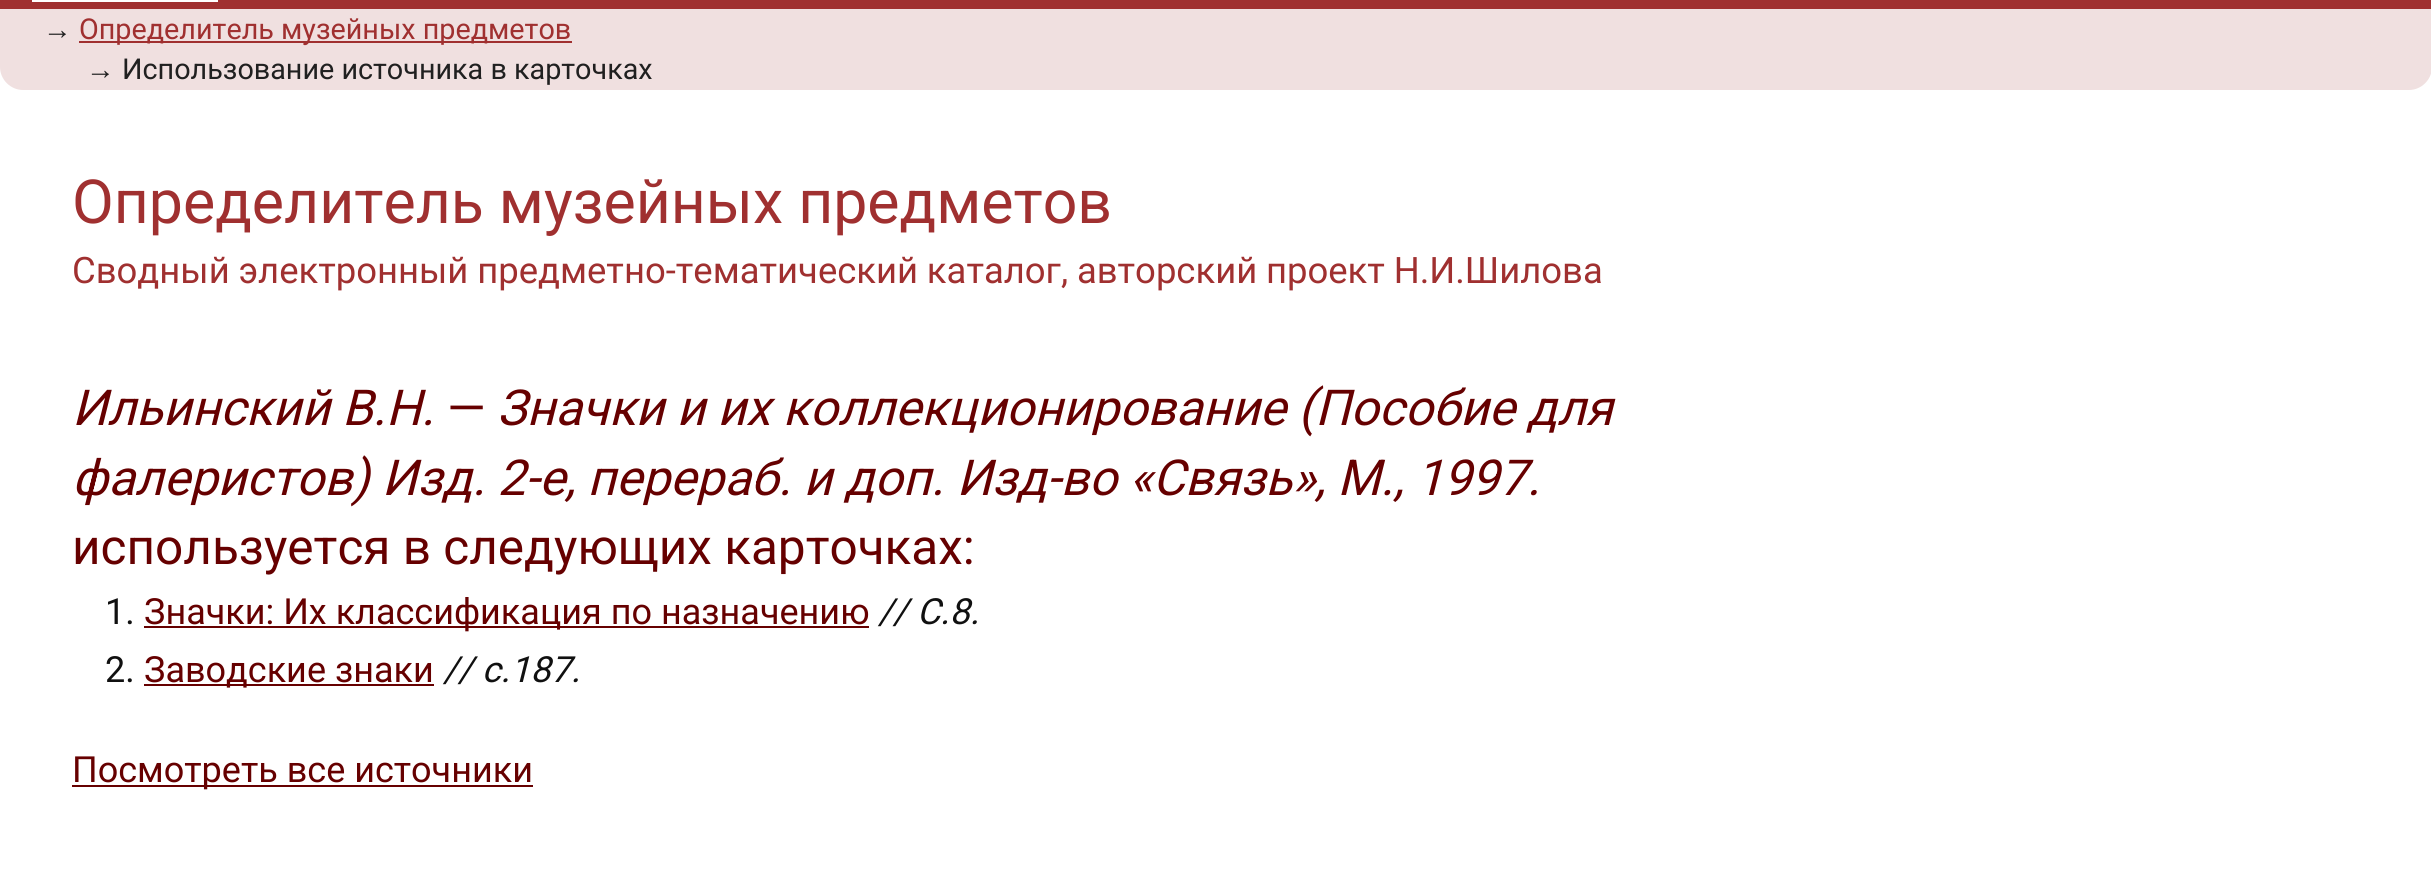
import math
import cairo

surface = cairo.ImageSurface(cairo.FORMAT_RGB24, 2431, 875)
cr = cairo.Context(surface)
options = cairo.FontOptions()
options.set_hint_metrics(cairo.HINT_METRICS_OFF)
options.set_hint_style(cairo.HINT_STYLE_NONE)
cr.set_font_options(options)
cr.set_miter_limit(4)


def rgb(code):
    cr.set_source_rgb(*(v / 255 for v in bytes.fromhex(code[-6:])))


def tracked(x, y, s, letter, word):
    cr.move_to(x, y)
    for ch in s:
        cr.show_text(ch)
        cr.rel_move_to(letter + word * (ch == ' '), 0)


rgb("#ffffff")
cr.paint()
rgb("#a03030")
cr.rectangle(0, 0, 2431, 9)
cr.fill()
rgb("#ffffff")
cr.rectangle(32, 0, 186, 2)
cr.fill()
rgb("#f0e0e0")
cr.new_path()
cr.move_to(0, 9)
cr.line_to(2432, 9)
cr.line_to(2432, 67)
cr.curve_to(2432, 79.5, 2421.5, 90, 2409, 90)
cr.line_to(23, 90)
cr.curve_to(10.5, 90, 0, 79.5, 0, 67)
cr.close_path()
cr.fill()
for x, y, w, h, color in [
    (79, 41, 493, 2, "#a03030"),
    (144, 626, 725, 2, "#660000"),
    (144, 684, 290, 2, "#660000"),
    (72, 785, 461, 2, "#660000"),
]:
    rgb(color)
    cr.rectangle(x, y, w, h)
    cr.fill()
cr.select_font_face("Liberation Sans")
cr.set_font_size(28.75)
rgb("#202020")
cr.move_to(43, 39)
cr.show_text("→")
cr.select_font_face("Roboto")
rgb("#a03030")
cr.move_to(79, 39)
cr.show_text("Определитель музейных предметов")
cr.select_font_face("Liberation Sans")
rgb("#202020")
cr.move_to(86, 79)
cr.show_text("→")
cr.select_font_face("Roboto")
cr.move_to(122, 79)
cr.show_text("Использование источника в карточках")
cr.set_font_size(60.75)
rgb("#a03030")
cr.move_to(72, 223)
cr.show_text("Определитель музейных предметов")
cr.set_font_size(36.45)
tracked(72, 283, "Сводный электронный предметно-тематический каталог, авторский проект Н.И.Шилова", 0, -0.25)
cr.select_font_face("Roboto", cairo.FONT_SLANT_ITALIC)
cr.set_font_size(49.5)
rgb("#660000")
cr.move_to(72, 425)
cr.show_text("Ильинский В.Н.")
cr.select_font_face("Roboto")
cr.move_to(447, 425)
cr.show_text("—")
cr.select_font_face("Roboto", cairo.FONT_SLANT_ITALIC)
cr.move_to(497, 425)
cr.show_text("Значки и их коллекционирование (Пособие для")
cr.move_to(72, 495)
cr.show_text("фалеристов) Изд. 2-е, перераб. и доп. Изд-во «Связь», М., 1997.")
cr.select_font_face("Roboto")
cr.move_to(72, 564)
cr.show_text("используется в следующих карточках:")
cr.set_font_size(36)
rgb("#101010")
cr.move_to(105, 624)
cr.show_text("1.")
rgb("#660000")
cr.move_to(144, 624)
cr.show_text("Значки: Их классификация по назначению")
cr.select_font_face("Roboto", cairo.FONT_SLANT_ITALIC)
rgb("#101010")
cr.move_to(878, 624)
cr.show_text("// С.8.")
cr.select_font_face("Roboto")
cr.move_to(105, 682)
cr.show_text("2.")
rgb("#660000")
cr.move_to(144, 682)
cr.show_text("Заводские знаки")
cr.select_font_face("Roboto", cairo.FONT_SLANT_ITALIC)
rgb("#101010")
cr.move_to(443, 682)
cr.show_text("// с.187.")
cr.select_font_face("Roboto")
rgb("#660000")
cr.move_to(72, 782)
cr.show_text("Посмотреть все источники")
surface.write_to_png("page.png")
